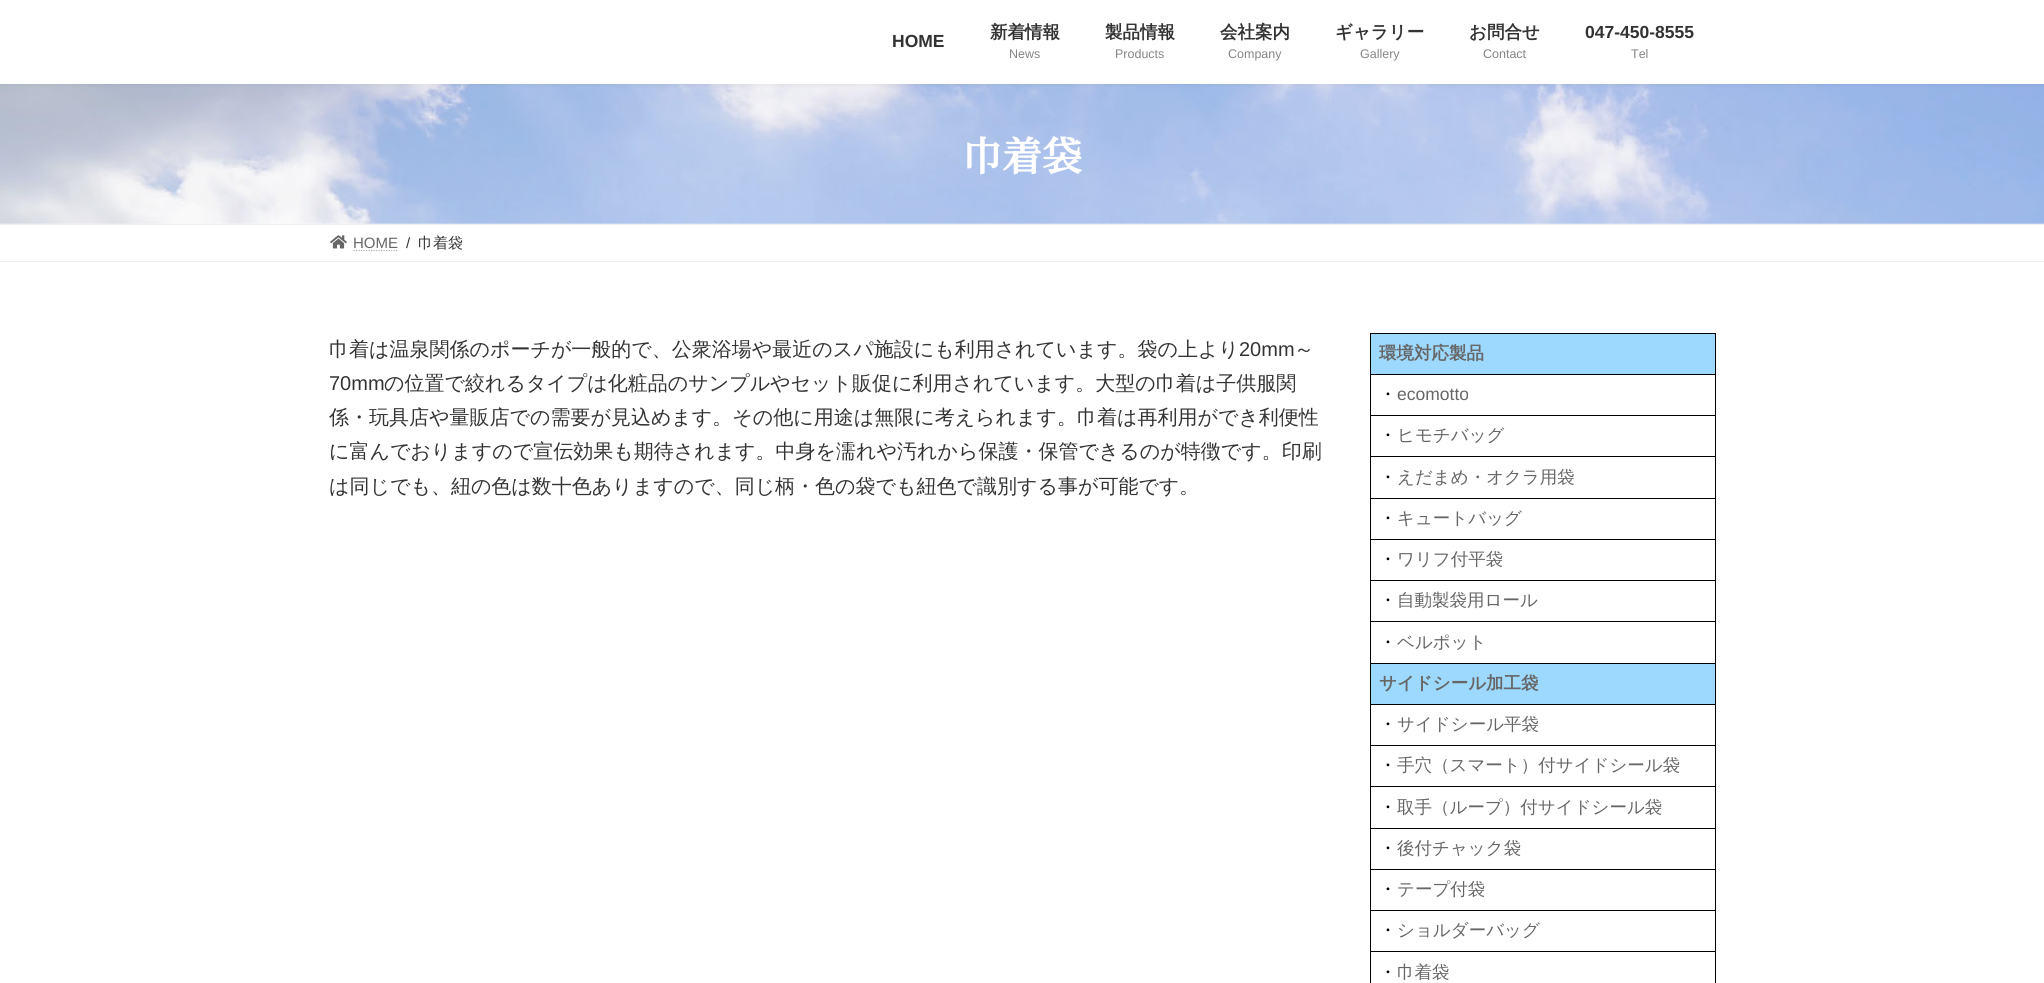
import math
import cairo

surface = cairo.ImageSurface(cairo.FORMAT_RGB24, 2044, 983)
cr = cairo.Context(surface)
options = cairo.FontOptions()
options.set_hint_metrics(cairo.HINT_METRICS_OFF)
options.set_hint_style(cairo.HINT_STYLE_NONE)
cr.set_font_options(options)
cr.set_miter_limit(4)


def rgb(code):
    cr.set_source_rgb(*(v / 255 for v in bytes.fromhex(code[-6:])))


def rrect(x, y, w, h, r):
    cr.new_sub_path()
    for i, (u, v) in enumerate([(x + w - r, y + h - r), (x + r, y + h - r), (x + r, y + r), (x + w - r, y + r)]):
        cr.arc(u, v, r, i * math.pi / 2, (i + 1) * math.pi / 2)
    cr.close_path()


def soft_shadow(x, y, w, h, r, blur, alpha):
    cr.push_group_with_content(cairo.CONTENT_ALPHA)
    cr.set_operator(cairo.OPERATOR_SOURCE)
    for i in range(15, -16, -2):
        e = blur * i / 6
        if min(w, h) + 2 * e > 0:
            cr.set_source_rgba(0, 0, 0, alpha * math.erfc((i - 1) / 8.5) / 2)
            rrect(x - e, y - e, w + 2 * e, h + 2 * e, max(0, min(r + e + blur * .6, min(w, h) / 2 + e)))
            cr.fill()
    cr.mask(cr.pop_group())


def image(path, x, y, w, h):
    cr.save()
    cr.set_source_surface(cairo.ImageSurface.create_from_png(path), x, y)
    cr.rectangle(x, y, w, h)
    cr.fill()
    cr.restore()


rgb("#ffffff")
cr.paint()
image("img/1.png", 0, 84, 2044, 140)
rgb("#000000")
soft_shadow(0, 1, 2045, 84, 0, 2, 0.05)
for x, y, w, h, color in [
    (0, 0, 2044, 84, "#ffffff"),
    (0, 224, 2044, 1, "#f0f0f0"),
    (0, 261, 2044, 1, "#f0f0f0"),
]:
    rgb(color)
    cr.rectangle(x, y, w, h)
    cr.fill()
image("img/2.png", 330, 235, 17, 14)
cr.new_path()
cr.move_to(353.5, 250.5)
cr.line_to(398.5, 250.5)
rgb("#b3b3b3")
cr.set_line_width(1.2)
cr.set_dash([1.25, 1.25])
cr.stroke()
for x, y, w, h, color in [
    (1371, 334, 344, 40, "#9dd9ff"),
    (1370, 333, 346, 1, "#000000"),
    (1370, 374, 346, 1, "#000000"),
    (1370, 415, 346, 1, "#000000"),
    (1370, 456, 346, 1, "#000000"),
    (1370, 498, 346, 1, "#000000"),
    (1370, 539, 346, 1, "#000000"),
    (1370, 580, 346, 1, "#000000"),
    (1370, 621, 346, 1, "#000000"),
    (1370, 663, 346, 1, "#000000"),
    (1370, 704, 346, 1, "#000000"),
    (1370, 745, 346, 1, "#000000"),
    (1370, 786, 346, 1, "#000000"),
    (1370, 828, 346, 1, "#000000"),
    (1370, 869, 346, 1, "#000000"),
    (1370, 910, 346, 1, "#000000"),
    (1370, 951, 346, 1, "#000000"),
    (1715, 951, 1, 32, "#000000"),
    (1715, 910, 1, 43, "#000000"),
    (1715, 869, 1, 42, "#000000"),
    (1715, 828, 1, 42, "#000000"),
    (1715, 786, 1, 43, "#000000"),
    (1715, 745, 1, 43, "#000000"),
    (1715, 704, 1, 42, "#000000"),
    (1715, 663, 1, 42, "#000000"),
    (1715, 621, 1, 43, "#000000"),
    (1715, 580, 1, 43, "#000000"),
    (1715, 539, 1, 42, "#000000"),
    (1715, 498, 1, 42, "#000000"),
    (1715, 456, 1, 43, "#000000"),
    (1715, 415, 1, 43, "#000000"),
    (1715, 374, 1, 42, "#000000"),
    (1715, 333, 1, 42, "#000000"),
    (1370, 951, 1, 32, "#000000"),
    (1370, 910, 1, 43, "#000000"),
    (1370, 869, 1, 42, "#000000"),
    (1370, 828, 1, 42, "#000000"),
    (1370, 786, 1, 43, "#000000"),
    (1370, 745, 1, 43, "#000000"),
    (1370, 704, 1, 42, "#000000"),
    (1370, 663, 1, 42, "#000000"),
    (1370, 621, 1, 43, "#000000"),
    (1370, 580, 1, 43, "#000000"),
    (1370, 539, 1, 42, "#000000"),
    (1370, 498, 1, 42, "#000000"),
    (1370, 456, 1, 43, "#000000"),
    (1370, 415, 1, 43, "#000000"),
    (1370, 374, 1, 42, "#000000"),
    (1370, 333, 1, 42, "#000000"),
    (1371, 664, 344, 40, "#9dd9ff"),
]:
    rgb(color)
    cr.rectangle(x, y, w, h)
    cr.fill()
cr.select_font_face("Liberation Sans", cairo.FONT_SLANT_NORMAL, cairo.FONT_WEIGHT_BOLD)
cr.set_font_size(17.5)
rgb("#333333")
cr.move_to(892, 47)
cr.show_text("HOME")
cr.select_font_face("WenQuanYi Zen Hei", cairo.FONT_SLANT_NORMAL, cairo.FONT_WEIGHT_BOLD)
cr.move_to(990, 38)
cr.show_text("新着情報")
cr.select_font_face("Liberation Sans")
cr.set_font_size(12.5)
rgb("#858585")
cr.move_to(1009, 58)
cr.show_text("News")
cr.select_font_face("WenQuanYi Zen Hei", cairo.FONT_SLANT_NORMAL, cairo.FONT_WEIGHT_BOLD)
cr.set_font_size(17.5)
rgb("#333333")
cr.move_to(1105, 38)
cr.show_text("製品情報")
cr.select_font_face("Liberation Sans")
cr.set_font_size(12.5)
rgb("#858585")
cr.move_to(1115, 58)
cr.show_text("Products")
cr.select_font_face("WenQuanYi Zen Hei", cairo.FONT_SLANT_NORMAL, cairo.FONT_WEIGHT_BOLD)
cr.set_font_size(17.5)
rgb("#333333")
cr.move_to(1220, 38)
cr.show_text("会社案内")
cr.select_font_face("Liberation Sans")
cr.set_font_size(12.5)
rgb("#858585")
cr.move_to(1228, 58)
cr.show_text("Company")
cr.select_font_face("WenQuanYi Zen Hei", cairo.FONT_SLANT_NORMAL, cairo.FONT_WEIGHT_BOLD)
cr.set_font_size(17.5)
rgb("#333333")
cr.move_to(1335, 38)
cr.show_text("ギャラリー")
cr.select_font_face("Liberation Sans")
cr.set_font_size(12.5)
rgb("#858585")
cr.move_to(1360, 58)
cr.show_text("Gallery")
cr.select_font_face("WenQuanYi Zen Hei", cairo.FONT_SLANT_NORMAL, cairo.FONT_WEIGHT_BOLD)
cr.set_font_size(17.5)
rgb("#333333")
cr.move_to(1469, 38)
cr.show_text("お問合せ")
cr.select_font_face("Liberation Sans")
cr.set_font_size(12.5)
rgb("#858585")
cr.move_to(1483, 58)
cr.show_text("Contact")
cr.select_font_face("Liberation Sans", cairo.FONT_SLANT_NORMAL, cairo.FONT_WEIGHT_BOLD)
cr.set_font_size(17.5)
rgb("#333333")
cr.move_to(1585, 38)
cr.show_text("047-450-8555")
cr.select_font_face("Liberation Sans")
cr.set_font_size(12.5)
rgb("#858585")
cr.move_to(1631, 58)
cr.show_text("Tel")
cr.select_font_face("Noto Serif JP", cairo.FONT_SLANT_NORMAL, cairo.FONT_WEIGHT_BOLD)
cr.set_font_size(40)
rgb("#ffffff")
cr.move_to(962, 171)
cr.show_text("巾着袋")
cr.select_font_face("Liberation Sans")
cr.set_font_size(15)
rgb("#666666")
cr.move_to(353, 248)
cr.show_text("HOME")
rgb("#333333")
cr.move_to(406, 248)
cr.show_text("/")
cr.select_font_face("WenQuanYi Zen Hei Medium")
cr.move_to(418, 248)
cr.show_text("巾着袋")
cr.set_font_size(20)
cr.move_to(329, 356)
cr.show_text("巾着は温泉関係のポーチが一般的で、公衆浴場や最近のスパ施設にも利用されています。袋の上より")
cr.select_font_face("Liberation Sans")
cr.move_to(1239, 356)
cr.show_text("20mm")
cr.select_font_face("WenQuanYi Zen Hei Medium")
cr.move_to(1294, 356)
cr.show_text("～")
cr.select_font_face("Liberation Sans")
cr.move_to(329, 390)
cr.show_text("70mm")
cr.select_font_face("WenQuanYi Zen Hei Medium")
for x, y, s in [
    (384, 390, "の位置で絞れるタイプは化粧品のサンプルやセット販促に利用されています。大型の巾着は子供服関"),
    (329, 424, "係・玩具店や量販店での需要が見込めます。その他に用途は無限に考えられます。巾着は再利用ができ利便性"),
    (329, 458, "に富んでおりますので宣伝効果も期待されます。中身を濡れや汚れから保護・保管できるのが特徴です。印刷"),
    (329, 493, "は同じでも、紐の色は数十色ありますので、同じ柄・色の袋でも紐色で識別する事が可能です。"),
]:
    cr.move_to(x, y)
    cr.show_text(s)
cr.select_font_face("WenQuanYi Zen Hei", cairo.FONT_SLANT_NORMAL, cairo.FONT_WEIGHT_BOLD)
cr.set_font_size(17.5)
rgb("#666666")
cr.move_to(1379, 359)
cr.show_text("環境対応製品")
cr.select_font_face("WenQuanYi Zen Hei Medium")
rgb("#000000")
cr.move_to(1379, 400)
cr.show_text("・")
cr.select_font_face("Liberation Sans")
rgb("#666666")
cr.move_to(1397, 400)
cr.show_text("ecomotto")
cr.select_font_face("WenQuanYi Zen Hei Medium")
rgb("#000000")
cr.move_to(1379, 441)
cr.show_text("・")
rgb("#666666")
cr.move_to(1397, 441)
cr.show_text("ヒモチバッグ")
rgb("#000000")
cr.move_to(1379, 483)
cr.show_text("・")
rgb("#666666")
cr.move_to(1397, 483)
cr.show_text("えだまめ・オクラ用袋")
rgb("#000000")
cr.move_to(1379, 524)
cr.show_text("・")
rgb("#666666")
cr.move_to(1397, 524)
cr.show_text("キュートバッグ")
rgb("#000000")
cr.move_to(1379, 565)
cr.show_text("・")
rgb("#666666")
cr.move_to(1397, 565)
cr.show_text("ワリフ付平袋")
rgb("#000000")
cr.move_to(1379, 606)
cr.show_text("・")
rgb("#666666")
cr.move_to(1397, 606)
cr.show_text("自動製袋用ロール")
rgb("#000000")
cr.move_to(1379, 648)
cr.show_text("・")
rgb("#666666")
cr.move_to(1397, 648)
cr.show_text("ベルポット")
cr.select_font_face("WenQuanYi Zen Hei", cairo.FONT_SLANT_NORMAL, cairo.FONT_WEIGHT_BOLD)
cr.move_to(1379, 689)
cr.show_text("サイドシール加工袋")
cr.select_font_face("WenQuanYi Zen Hei Medium")
rgb("#000000")
cr.move_to(1379, 730)
cr.show_text("・")
rgb("#666666")
cr.move_to(1397, 730)
cr.show_text("サイドシール平袋")
rgb("#000000")
cr.move_to(1379, 771)
cr.show_text("・")
rgb("#666666")
cr.move_to(1397, 771)
cr.show_text("手穴（スマート）付サイドシール袋")
rgb("#000000")
cr.move_to(1379, 813)
cr.show_text("・")
rgb("#666666")
cr.move_to(1397, 813)
cr.show_text("取手（ループ）付サイドシール袋")
rgb("#000000")
cr.move_to(1379, 854)
cr.show_text("・")
rgb("#666666")
cr.move_to(1397, 854)
cr.show_text("後付チャック袋")
rgb("#000000")
cr.move_to(1379, 895)
cr.show_text("・")
rgb("#666666")
cr.move_to(1397, 895)
cr.show_text("テープ付袋")
rgb("#000000")
cr.move_to(1379, 936)
cr.show_text("・")
rgb("#666666")
cr.move_to(1397, 936)
cr.show_text("ショルダーバッグ")
rgb("#000000")
cr.move_to(1379, 978)
cr.show_text("・")
rgb("#666666")
cr.move_to(1397, 978)
cr.show_text("巾着袋")
surface.write_to_png("page.png")
